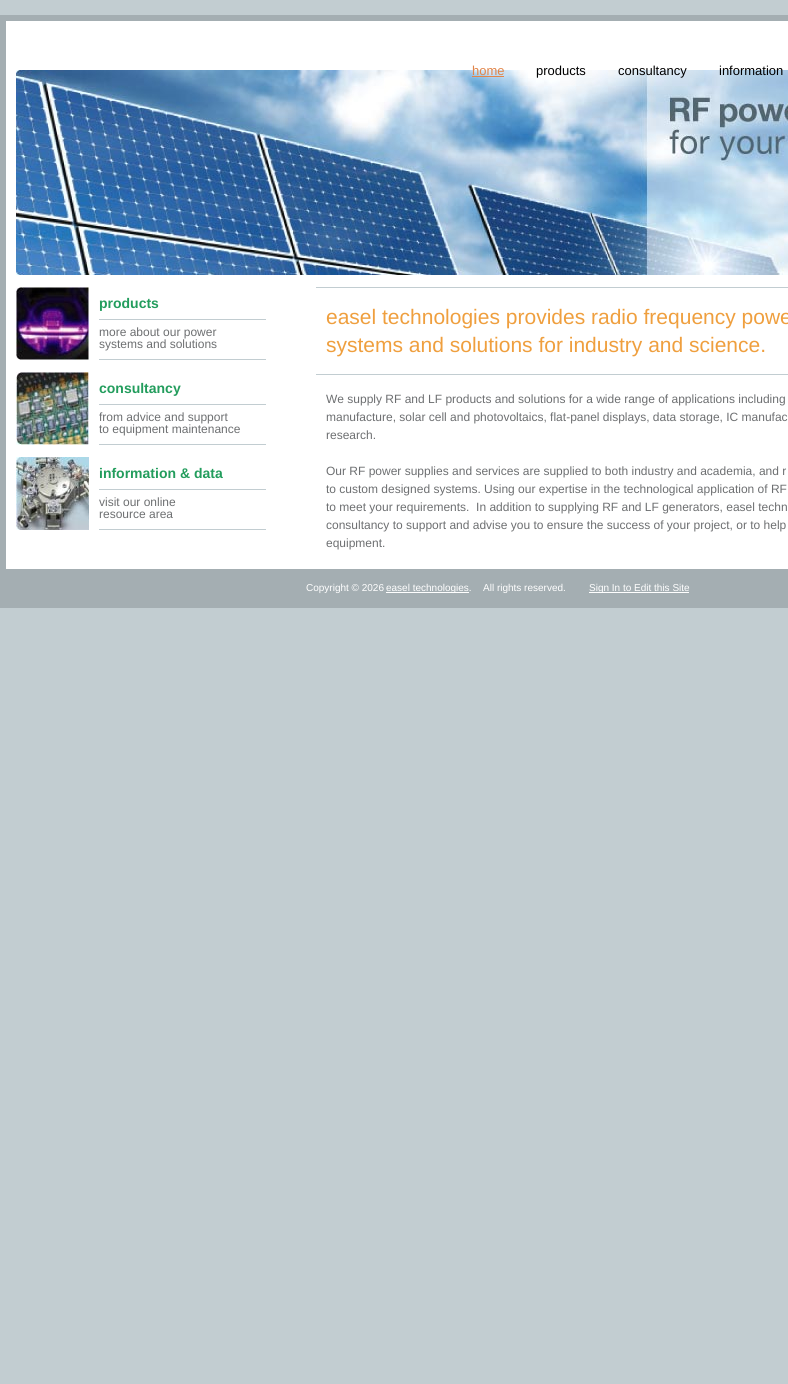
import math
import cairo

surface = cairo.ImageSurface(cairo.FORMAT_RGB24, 788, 1384)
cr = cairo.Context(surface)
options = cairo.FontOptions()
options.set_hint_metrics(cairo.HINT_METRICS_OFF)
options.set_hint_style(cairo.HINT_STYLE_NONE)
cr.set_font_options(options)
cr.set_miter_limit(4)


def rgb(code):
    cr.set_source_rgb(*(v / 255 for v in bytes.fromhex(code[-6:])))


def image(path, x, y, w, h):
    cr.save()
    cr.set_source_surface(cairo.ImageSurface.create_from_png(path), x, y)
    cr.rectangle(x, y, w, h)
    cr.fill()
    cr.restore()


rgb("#c2cdd1")
cr.paint()
rgb("#ffffff")
cr.rectangle(6, 21, 782, 548)
cr.fill()
cr.rectangle(3, 18, 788, 587)
rgb("#a4aeb2")
cr.set_line_width(6)
cr.stroke()
image("img/1.png", 16, 70, 772, 205)
rgb("#e1854a")
cr.rectangle(472, 76, 32, 1)
cr.fill()
image("img/2.png", 16, 287, 73, 73)
rgb("#c2cdd1")
cr.rectangle(99, 319, 167, 1)
cr.fill()
cr.rectangle(99, 359, 167, 1)
cr.fill()
image("img/3.png", 16, 372, 73, 73)
cr.rectangle(99, 404, 167, 1)
cr.fill()
cr.rectangle(99, 444, 167, 1)
cr.fill()
image("img/4.png", 16, 457, 73, 73)
for x, y, w, h, color in [
    (99, 489, 167, 1, "#c2cdd1"),
    (99, 529, 167, 1, "#c2cdd1"),
    (316, 287, 472, 1, "#c2cdd1"),
    (316, 374, 472, 1, "#c2cdd1"),
    (6, 569, 782, 33, "#a4aeb2"),
    (386, 592, 83, 1, "#ffffff"),
    (589, 592, 100, 1, "#ffffff"),
]:
    rgb(color)
    cr.rectangle(x, y, w, h)
    cr.fill()
cr.select_font_face("Liberation Sans")
cr.set_font_size(13)
rgb("#e1854a")
cr.move_to(472, 75)
cr.show_text("home")
rgb("#000000")
for x, y, s in [
    (536, 75, "products"),
    (618, 75, "consultancy"),
    (719, 75, "information"),
]:
    cr.move_to(x, y)
    cr.show_text(s)
cr.select_font_face("Liberation Sans", cairo.FONT_SLANT_NORMAL, cairo.FONT_WEIGHT_BOLD)
cr.set_font_size(14)
rgb("#239d5d")
cr.move_to(99, 308)
cr.show_text("products")
cr.select_font_face("Liberation Sans")
cr.set_font_size(12)
rgb("#6d6f71")
cr.move_to(99, 336)
cr.show_text("more about our power")
cr.move_to(99, 348)
cr.show_text("systems and solutions")
cr.select_font_face("Liberation Sans", cairo.FONT_SLANT_NORMAL, cairo.FONT_WEIGHT_BOLD)
cr.set_font_size(14)
rgb("#239d5d")
cr.move_to(99, 393)
cr.show_text("consultancy")
cr.select_font_face("Liberation Sans")
cr.set_font_size(12)
rgb("#6d6f71")
cr.move_to(99, 421)
cr.show_text("from advice and support")
cr.move_to(99, 433)
cr.show_text("to equipment maintenance")
cr.select_font_face("Liberation Sans", cairo.FONT_SLANT_NORMAL, cairo.FONT_WEIGHT_BOLD)
cr.set_font_size(14)
rgb("#239d5d")
cr.move_to(99, 478)
cr.show_text("information & data")
cr.select_font_face("Liberation Sans")
cr.set_font_size(12)
rgb("#6d6f71")
cr.move_to(99, 506)
cr.show_text("visit our online")
cr.move_to(99, 518)
cr.show_text("resource area")
cr.set_font_size(21)
rgb("#ef9f3e")
cr.move_to(326, 324)
cr.show_text("easel technologies provides radio frequency powe")
cr.move_to(326, 352)
cr.show_text("systems and solutions for industry and science.")
cr.set_font_size(12)
rgb("#6d6f71")
for x, y, s in [
    (326, 403, "We supply RF and LF products and solutions for a wide range of applications including"),
    (326, 421, "manufacture, solar cell and photovoltaics, flat-panel displays, data storage, IC manufac"),
    (326, 439, "research."),
    (326, 475, "Our RF power supplies and services are supplied to both industry and academia, and r"),
    (326, 493, "to custom designed systems. Using our expertise in the technological application of RF"),
    (326, 511, "to meet your requirements.  In addition to supplying RF and LF generators, easel techn"),
    (326, 529, "consultancy to support and advise you to ensure the success of your project, or to help"),
    (326, 547, "equipment."),
]:
    cr.move_to(x, y)
    cr.show_text(s)
cr.set_font_size(10)
rgb("#ffffff")
for x, y, s in [
    (306, 591, "Copyright © 2026"),
    (386, 591, "easel technologies."),
    (483, 591, "All rights reserved."),
    (589, 591, "Sign In to Edit this Site"),
]:
    cr.move_to(x, y)
    cr.show_text(s)
surface.write_to_png("page.png")
